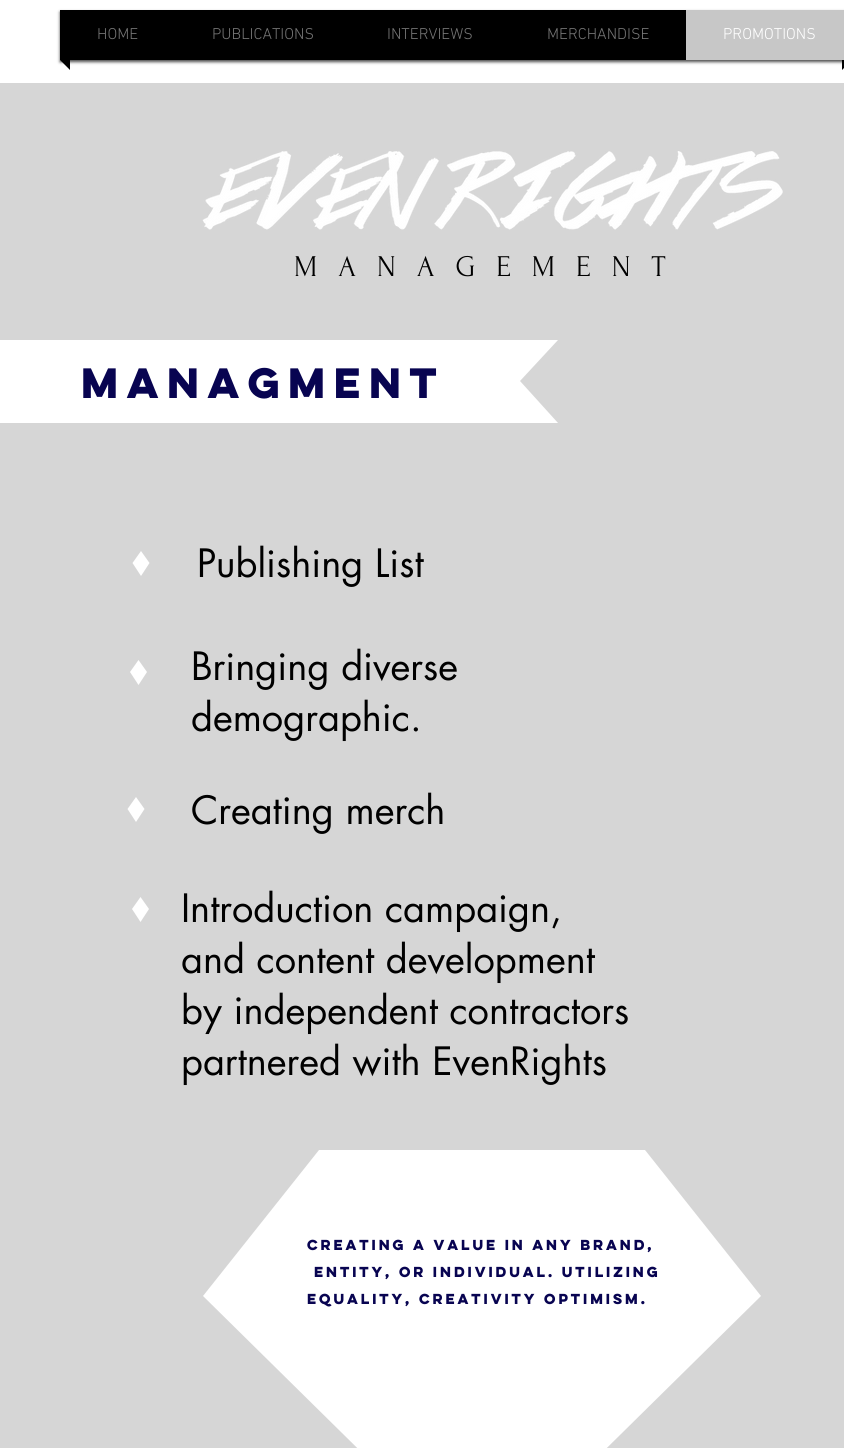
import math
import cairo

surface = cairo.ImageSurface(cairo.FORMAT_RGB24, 844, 1448)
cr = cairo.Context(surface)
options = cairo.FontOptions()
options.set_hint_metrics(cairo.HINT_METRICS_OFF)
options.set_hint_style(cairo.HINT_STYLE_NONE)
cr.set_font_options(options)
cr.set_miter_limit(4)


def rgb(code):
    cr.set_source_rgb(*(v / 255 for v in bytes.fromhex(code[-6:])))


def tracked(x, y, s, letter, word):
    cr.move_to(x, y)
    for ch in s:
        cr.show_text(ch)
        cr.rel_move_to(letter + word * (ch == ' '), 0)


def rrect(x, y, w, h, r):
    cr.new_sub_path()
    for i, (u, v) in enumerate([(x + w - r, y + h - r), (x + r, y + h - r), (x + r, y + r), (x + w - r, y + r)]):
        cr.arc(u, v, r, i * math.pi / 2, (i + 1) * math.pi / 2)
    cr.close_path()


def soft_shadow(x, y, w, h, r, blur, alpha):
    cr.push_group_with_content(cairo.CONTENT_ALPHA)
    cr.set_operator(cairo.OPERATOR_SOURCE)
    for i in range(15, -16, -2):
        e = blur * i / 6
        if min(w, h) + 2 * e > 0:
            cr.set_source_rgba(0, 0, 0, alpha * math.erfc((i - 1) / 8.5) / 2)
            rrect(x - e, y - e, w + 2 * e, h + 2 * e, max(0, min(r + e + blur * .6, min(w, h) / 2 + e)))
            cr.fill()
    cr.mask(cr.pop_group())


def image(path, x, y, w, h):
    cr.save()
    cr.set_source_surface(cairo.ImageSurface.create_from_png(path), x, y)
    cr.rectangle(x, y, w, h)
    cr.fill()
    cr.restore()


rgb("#ffffff")
cr.paint()
rgb("#000000")
cr.new_path()
cr.move_to(60, 60)
cr.line_to(70, 60)
cr.line_to(70, 70)
cr.close_path()
cr.fill()
cr.new_path()
cr.move_to(842, 60)
cr.line_to(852, 60)
cr.line_to(842, 70)
cr.close_path()
cr.fill()
rgb("#000000")
soft_shadow(60, 12, 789, 50, 0, 1.5, 0.7)
for x, y, w, h, color in [
    (60, 10, 626, 50, "#000000"),
    (686, 10, 158, 50, "#c7c7c7"),
    (0, 83, 844, 1365, "#d6d6d6"),
]:
    rgb(color)
    cr.rectangle(x, y, w, h)
    cr.fill()
image("img/1.png", 202, 151, 581, 79)
rgb("#ffffff")
cr.new_path()
cr.move_to(558, 423)
cr.line_to(0, 423)
cr.line_to(0, 340)
cr.line_to(558, 340)
cr.line_to(520, 381)
cr.close_path()
cr.fill()
cr.new_path()
cr.move_to(141, 576)
cr.line_to(132.5, 563)
cr.line_to(141, 551)
cr.line_to(149.5, 563)
cr.close_path()
cr.fill()
cr.new_path()
cr.move_to(138.5, 685)
cr.line_to(130, 672)
cr.line_to(138.5, 660)
cr.line_to(147, 672)
cr.close_path()
cr.fill()
cr.new_path()
cr.move_to(136, 822)
cr.line_to(127.5, 809)
cr.line_to(136, 797)
cr.line_to(144.5, 809)
cr.close_path()
cr.fill()
cr.new_path()
cr.move_to(140.5, 922)
cr.line_to(132, 909)
cr.line_to(140.5, 897)
cr.line_to(149, 909)
cr.close_path()
cr.fill()
cr.new_path()
cr.move_to(645, 1150)
cr.line_to(319, 1150)
cr.line_to(203, 1296)
cr.line_to(482, 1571)
cr.line_to(761, 1296)
cr.close_path()
cr.fill()
cr.select_font_face("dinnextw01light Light")
cr.set_font_size(16)
rgb("#757575")
for x, y, s in [
    (97, 39, "HOME"),
    (212, 39, "PUBLICATIONS"),
    (387, 39, "INTERVIEWS"),
    (547, 39, "MERCHANDISE"),
]:
    cr.move_to(x, y)
    cr.show_text(s)
rgb("#ffffff")
cr.move_to(723, 39)
cr.show_text("PROMOTIONS")
cr.select_font_face("Forum")
cr.set_font_size(30)
rgb("#000000")
tracked(294, 276, "MANAGEMENT", 21, 0)
cr.select_font_face("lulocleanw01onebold", cairo.FONT_SLANT_NORMAL, cairo.FONT_WEIGHT_BOLD)
cr.set_font_size(38)
rgb("#080451")
cr.move_to(81, 398)
cr.show_text("MAnagment")
cr.select_font_face("futura")
rgb("#000000")
for x, y, s in [
    (197, 577, "Publishing List"),
    (191, 680, "Bringing diverse"),
    (191, 731, "demographic."),
    (191, 824, "Creating merch"),
    (181, 922, "Introduction campaign,"),
    (181, 973, "and content development"),
    (181, 1024, "by independent contractors"),
    (181, 1075, "partnered with EvenRights"),
]:
    cr.move_to(x, y)
    cr.show_text(s)
cr.select_font_face("lulocleanw01onebold", cairo.FONT_SLANT_NORMAL, cairo.FONT_WEIGHT_BOLD)
cr.set_font_size(13)
rgb("#080451")
for x, y, s in [
    (307, 1250, "Creating a value in any brand,"),
    (314, 1277, "entity, or individual. utilizing"),
    (307, 1304, "equality, creativity optimism."),
]:
    cr.move_to(x, y)
    cr.show_text(s)
surface.write_to_png("page.png")
